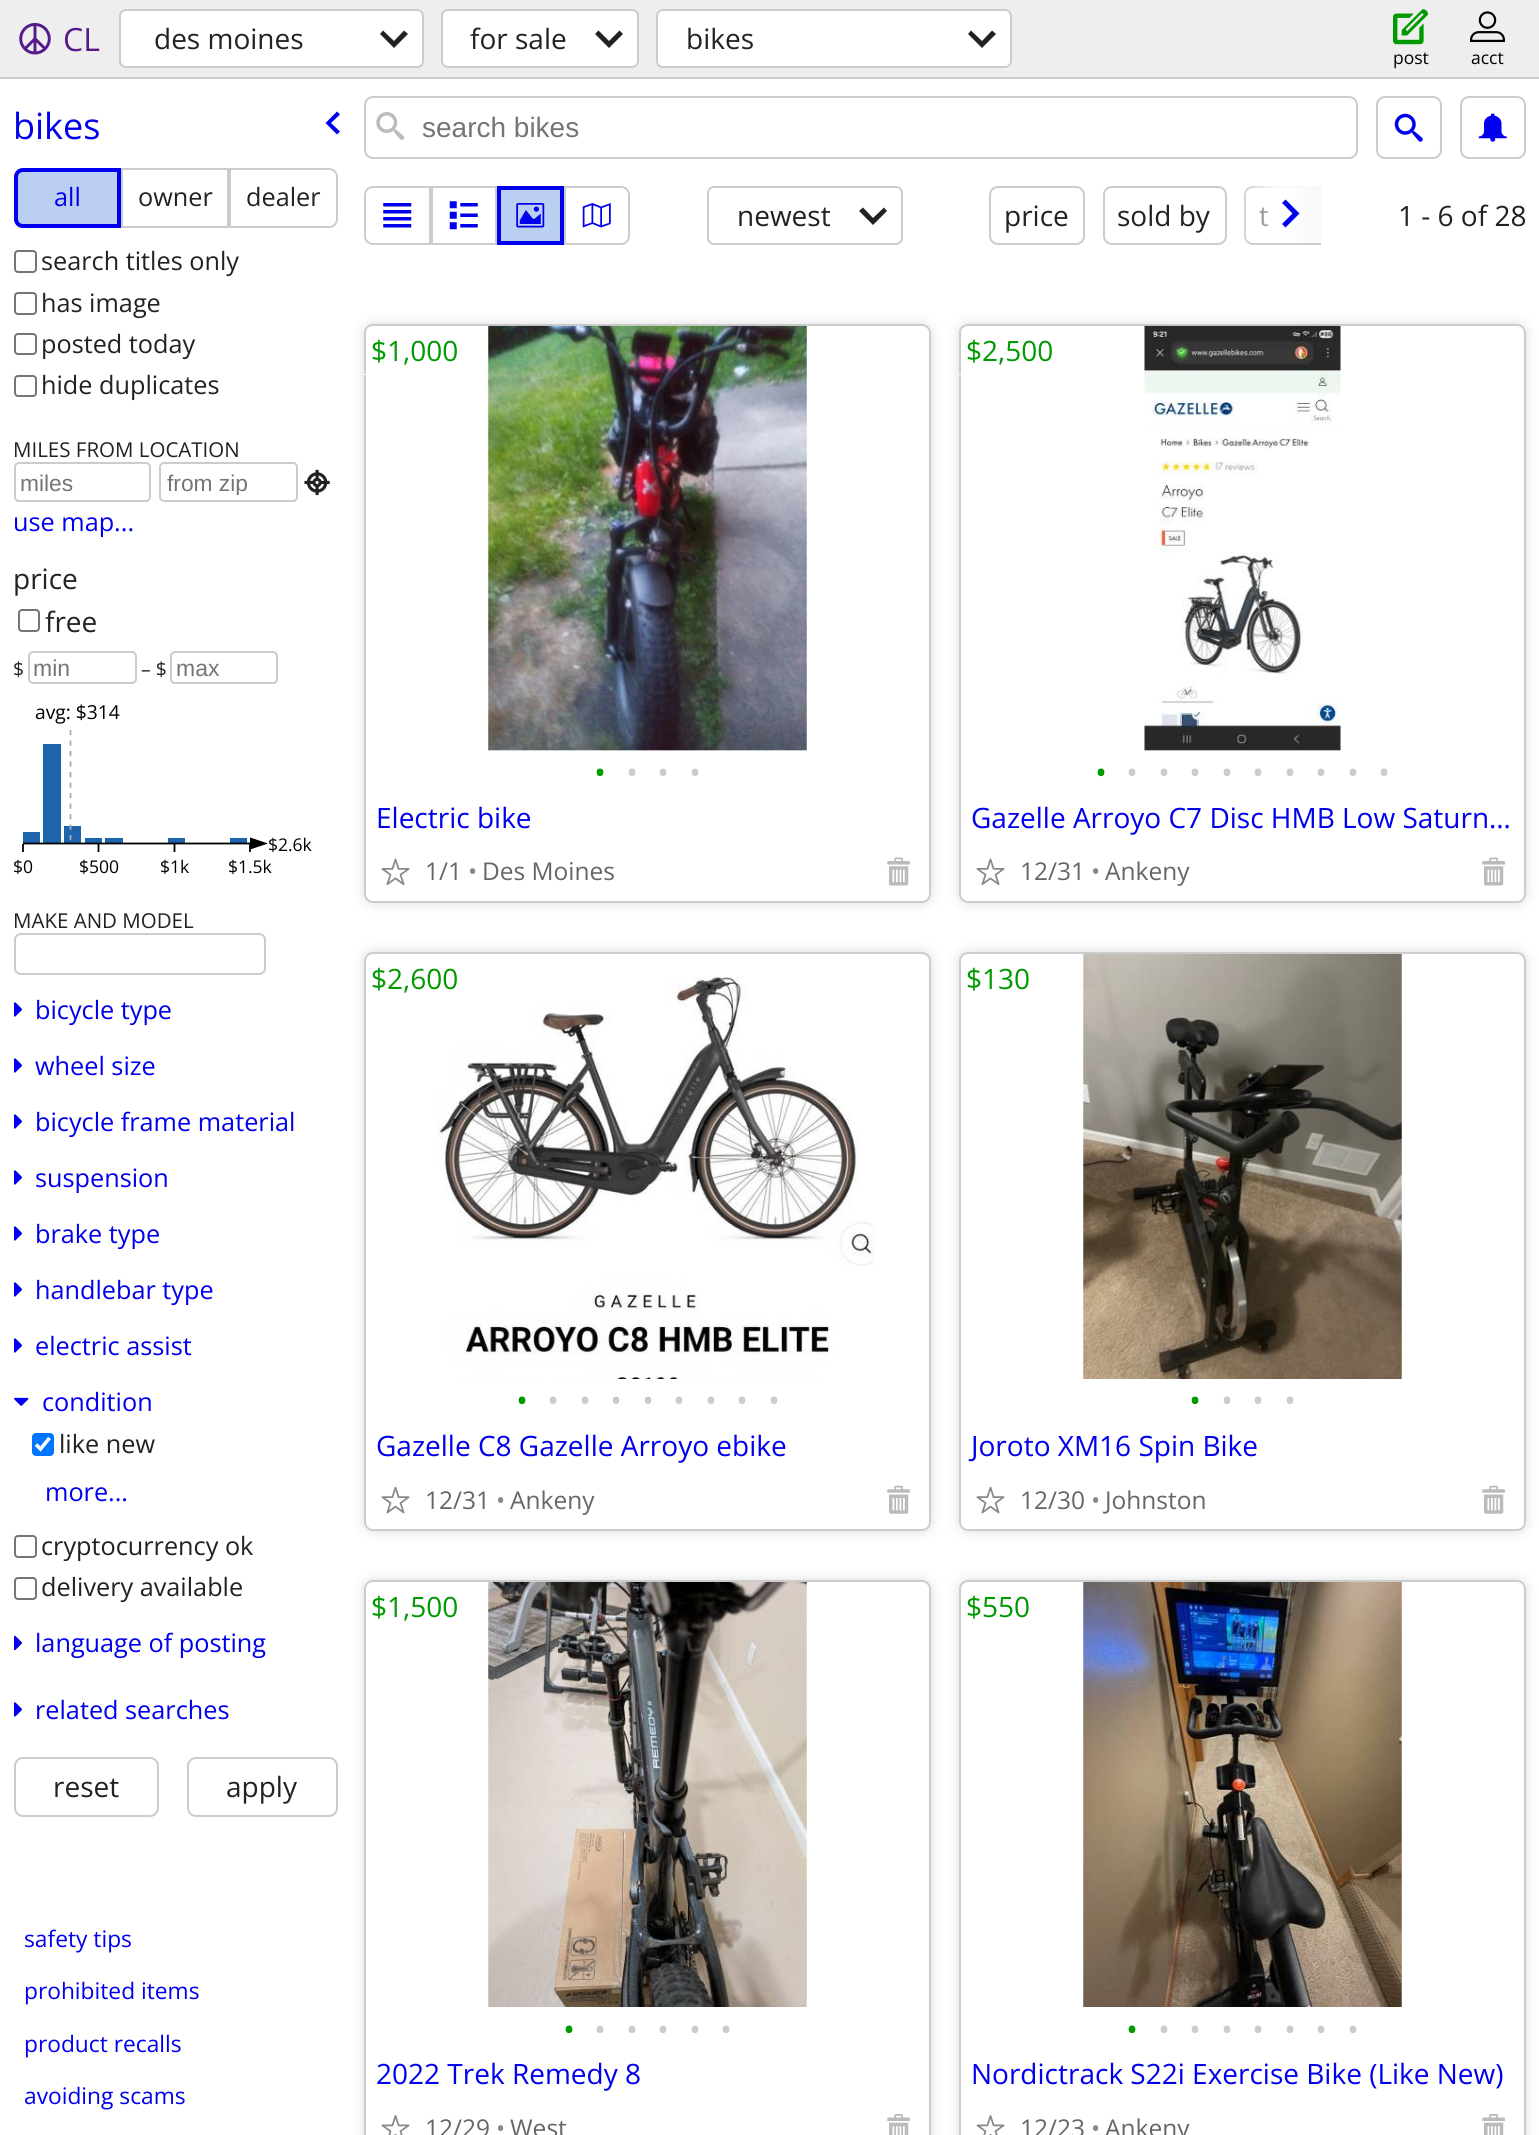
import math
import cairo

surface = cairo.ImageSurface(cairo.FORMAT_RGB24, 1539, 2135)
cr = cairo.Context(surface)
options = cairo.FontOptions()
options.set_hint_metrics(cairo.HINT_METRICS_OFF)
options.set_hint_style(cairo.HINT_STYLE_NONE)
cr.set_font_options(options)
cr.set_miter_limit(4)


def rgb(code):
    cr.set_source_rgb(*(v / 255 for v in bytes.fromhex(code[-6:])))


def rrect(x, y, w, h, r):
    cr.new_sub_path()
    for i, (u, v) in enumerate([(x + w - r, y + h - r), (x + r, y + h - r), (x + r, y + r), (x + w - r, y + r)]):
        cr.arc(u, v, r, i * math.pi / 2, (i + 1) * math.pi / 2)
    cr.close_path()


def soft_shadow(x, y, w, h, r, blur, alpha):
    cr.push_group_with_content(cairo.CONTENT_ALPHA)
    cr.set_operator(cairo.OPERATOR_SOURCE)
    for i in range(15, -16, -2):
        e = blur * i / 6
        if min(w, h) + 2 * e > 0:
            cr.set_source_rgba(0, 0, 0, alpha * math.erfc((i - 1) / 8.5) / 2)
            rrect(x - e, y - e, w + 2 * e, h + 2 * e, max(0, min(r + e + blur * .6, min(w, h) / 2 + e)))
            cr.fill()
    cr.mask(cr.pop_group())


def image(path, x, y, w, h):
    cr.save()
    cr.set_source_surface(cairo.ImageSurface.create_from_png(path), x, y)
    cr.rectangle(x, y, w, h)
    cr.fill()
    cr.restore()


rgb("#ffffff")
cr.paint()
rgb("#eeeeee")
cr.rectangle(0, 0, 1539, 77)
cr.fill()
rgb("#cccccc")
cr.rectangle(0, 77, 1539, 2)
cr.fill()
image("img/1.png", 19, 23, 32, 32)
rgb("#ffffff")
rrect(120, 10, 303, 57, 6)
cr.fill_preserve()
rgb("#cccccc")
cr.stroke()
rgb("#222222")
cr.new_path()
cr.move_to(408, 34)
cr.line_to(404, 30.5)
cr.line_to(394, 41)
cr.line_to(383, 30.5)
cr.line_to(380, 34)
cr.line_to(394, 48)
cr.close_path()
cr.fill()
rgb("#ffffff")
rrect(442, 10, 196, 57, 6)
cr.fill_preserve()
rgb("#cccccc")
cr.stroke()
rgb("#222222")
cr.new_path()
cr.move_to(623, 34)
cr.line_to(619.5, 30.5)
cr.line_to(609, 41)
cr.line_to(598.5, 30.5)
cr.line_to(595, 34)
cr.line_to(609, 48)
cr.close_path()
cr.fill()
rgb("#ffffff")
rrect(657, 10, 354, 57, 6)
cr.fill_preserve()
rgb("#cccccc")
cr.stroke()
rgb("#222222")
cr.new_path()
cr.move_to(996, 34)
cr.line_to(992, 30.5)
cr.line_to(982, 41)
cr.line_to(971, 30.5)
cr.line_to(968, 34)
cr.line_to(982, 48)
cr.close_path()
cr.fill()
image("img/2.png", 1393, 9, 35, 36)
image("img/3.png", 1470, 11, 35, 31)
rgb("#0000ee")
cr.new_path()
cr.move_to(337, 134.5)
cr.line_to(340, 131.5)
cr.line_to(331, 123)
cr.line_to(340, 114.5)
cr.line_to(337, 111.5)
cr.line_to(325.5, 123)
cr.close_path()
cr.fill()
rgb("#bacff2")
cr.new_path()
cr.move_to(23, 170)
cr.line_to(119, 170)
cr.line_to(119, 226)
cr.line_to(23, 226)
cr.curve_to(19, 226, 16, 223, 16, 219)
cr.line_to(16, 177)
cr.curve_to(16, 173, 19, 170, 23, 170)
cr.close_path()
cr.fill_preserve()
rgb("#0000ee")
cr.set_line_width(4)
cr.stroke()
cr.rectangle(122, 169, 106, 58)
rgb("#cccccc")
cr.set_line_width(2)
cr.stroke()
cr.new_path()
cr.move_to(230, 169)
cr.line_to(329, 169)
cr.curve_to(333.5, 169, 337, 172.5, 337, 177)
cr.line_to(337, 219)
cr.curve_to(337, 223.5, 333.5, 227, 329, 227)
cr.line_to(230, 227)
cr.close_path()
cr.stroke()
rrect(15, 251, 21, 21, 3)
rgb("#767676")
cr.stroke()
rrect(15, 293, 21, 21, 3)
cr.stroke()
rrect(15, 334, 21, 20, 3)
cr.stroke()
rrect(15, 376, 21, 20, 3)
cr.stroke()
rrect(15, 463, 135, 38, 4)
rgb("#cccccc")
cr.stroke()
rrect(160, 463, 137, 38, 4)
cr.stroke()
image("img/4.png", 304, 469, 26, 27)
rrect(19, 610, 20, 21, 3)
rgb("#767676")
cr.stroke()
rrect(29, 652, 107, 31, 4)
rgb("#cccccc")
cr.stroke()
rrect(171, 652, 106, 31, 4)
cr.stroke()
rgb("#1c64ac")
cr.rectangle(64, 826, 17, 17)
cr.fill()
cr.new_path()
cr.move_to(70.5, 730)
cr.line_to(70.5, 843.5)
rgb("#aaaaaa")
cr.set_line_width(1.8)
cr.set_dash([5.25, 5.25])
cr.stroke()
for x, y, w, h, color in [
    (23, 832, 17, 11, "#1c64ac"),
    (43, 744, 18, 99, "#1c64ac"),
    (85, 838, 17, 5, "#1c64ac"),
    (105, 838, 18, 5, "#1c64ac"),
    (168, 838, 17, 5, "#1c64ac"),
    (230, 838, 17, 5, "#1c64ac"),
    (22, 844, 2, 8, "#1a1a1a"),
]:
    rgb(color)
    cr.rectangle(x, y, w, h)
    cr.fill()
cr.new_path()
cr.move_to(98.5, 843.5)
cr.line_to(98.5, 852)
rgb("#000000")
cr.set_dash([])
cr.stroke()
cr.new_path()
cr.move_to(174.5, 843.5)
cr.line_to(174.5, 852)
cr.stroke()
rgb("#1a1a1a")
cr.rectangle(249, 844, 2, 8)
cr.fill()
cr.new_path()
cr.move_to(23, 843.5)
cr.line_to(250, 843.5)
rgb("#000000")
cr.stroke()
cr.new_path()
cr.move_to(250, 837.5)
cr.line_to(268, 843.5)
cr.line_to(250, 849.5)
cr.close_path()
cr.fill()
rrect(15, 934, 250, 40, 6)
rgb("#cccccc")
cr.set_line_width(2)
cr.stroke()
image("img/5.png", 14, 1002, 9, 15)
image("img/5.png", 14, 1058, 9, 15)
image("img/5.png", 14, 1114, 9, 15)
image("img/5.png", 14, 1170, 9, 15)
image("img/5.png", 14, 1226, 9, 15)
image("img/5.png", 14, 1282, 9, 15)
image("img/5.png", 14, 1338, 9, 15)
image("img/6.png", 14, 1397, 15, 9)
rgb("#0075ff")
rrect(32, 1433, 22, 23, 4)
cr.fill()
cr.new_path()
cr.move_to(36, 1444.5)
cr.line_to(40.5, 1449)
cr.line_to(49.5, 1438)
rgb("#ffffff")
cr.set_line_width(3.6)
cr.stroke()
rrect(15, 1536, 21, 21, 3)
rgb("#767676")
cr.set_line_width(2)
cr.stroke()
rrect(15, 1578, 21, 21, 3)
cr.stroke()
image("img/7.png", 14, 1635, 8, 16)
image("img/5.png", 14, 1702, 9, 15)
rrect(15, 1758, 143, 58, 8)
rgb("#cccccc")
cr.stroke()
rrect(188, 1758, 149, 58, 8)
cr.stroke()
rrect(365, 97, 992, 61, 8)
cr.stroke()
image("img/8.png", 376, 112, 29, 28)
rrect(1377, 97, 64, 61, 8)
cr.stroke()
image("img/9.png", 1394, 113, 29, 29)
rrect(1461, 97, 64, 61, 8)
cr.stroke()
image("img/10.png", 1478, 113, 29, 29)
cr.new_path()
cr.move_to(373, 187)
cr.line_to(430, 187)
cr.line_to(430, 244)
cr.line_to(373, 244)
cr.curve_to(368.5, 244, 365, 240.5, 365, 236)
cr.line_to(365, 195)
cr.curve_to(365, 190.5, 368.5, 187, 373, 187)
cr.close_path()
cr.stroke()
image("img/11.png", 383, 203, 29, 25)
cr.rectangle(432, 187, 64, 57)
cr.stroke()
image("img/12.png", 449, 201, 29, 29)
rgb("#bacff2")
cr.rectangle(499, 188, 63, 55)
cr.fill_preserve()
rgb("#0000ee")
cr.set_line_width(4)
cr.stroke()
image("img/13.png", 516, 203, 29, 25)
cr.new_path()
cr.move_to(565, 187)
cr.line_to(621, 187)
cr.curve_to(625.5, 187, 629, 190.5, 629, 195)
cr.line_to(629, 236)
cr.curve_to(629, 240.5, 625.5, 244, 621, 244)
cr.line_to(565, 244)
cr.close_path()
rgb("#cccccc")
cr.set_line_width(2)
cr.stroke()
image("img/14.png", 582, 203, 29, 25)
rrect(708, 187, 194, 57, 6)
cr.stroke()
rgb("#222222")
cr.new_path()
cr.move_to(887, 211)
cr.line_to(884, 207.5)
cr.line_to(873, 218)
cr.line_to(863, 207.5)
cr.line_to(859, 211)
cr.line_to(873, 225)
cr.close_path()
cr.fill()
rrect(990, 187, 94, 57, 8)
rgb("#cccccc")
cr.stroke()
rrect(1104, 187, 122, 57, 8)
cr.stroke()
cr.save()
cr.rectangle(989, 186, 332, 59)
cr.clip()
rrect(1245, 187, 86, 57, 8)
cr.stroke()
cr.restore()
cr.save()
cr.set_fill_rule(cairo.FILL_RULE_EVEN_ODD)
cr.new_path()
cr.move_to(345, 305)
cr.line_to(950, 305)
cr.line_to(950, 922)
cr.line_to(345, 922)
cr.close_path()
cr.move_to(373, 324)
cr.line_to(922, 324)
cr.curve_to(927, 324, 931, 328, 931, 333)
cr.line_to(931, 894)
cr.curve_to(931, 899, 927, 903, 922, 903)
cr.line_to(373, 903)
cr.curve_to(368, 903, 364, 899, 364, 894)
cr.line_to(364, 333)
cr.curve_to(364, 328, 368, 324, 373, 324)
cr.close_path()
cr.clip()
rgb("#dddddd")
soft_shadow(364, 324, 567, 579, 9, 6, 1)
cr.restore()
rrect(365, 325, 565, 577, 8)
cr.stroke()
rgb("#ffffff")
cr.new_path()
cr.move_to(373, 324)
cr.line_to(464, 324)
cr.line_to(464, 366)
cr.curve_to(464, 371, 460, 375, 455, 375)
cr.line_to(364, 375)
cr.line_to(364, 333)
cr.curve_to(364, 328, 368, 324, 373, 324)
cr.close_path()
cr.fill()
rgb("#cccccc")
cr.set_fill_rule(cairo.FILL_RULE_EVEN_ODD)
cr.new_path()
cr.move_to(373, 324)
cr.line_to(464, 324)
cr.line_to(464, 366)
cr.curve_to(464, 371, 460, 374, 455, 374)
cr.line_to(364, 374)
cr.line_to(364, 332)
cr.curve_to(364, 328, 368, 324, 373, 324)
cr.close_path()
cr.move_to(373, 326)
cr.line_to(464, 326)
cr.line_to(464, 366)
cr.curve_to(464, 371, 460, 374, 455, 374)
cr.line_to(366, 374)
cr.line_to(366, 332)
cr.curve_to(366, 329, 369, 326, 373, 326)
cr.close_path()
cr.fill()
image("img/15.png", 488, 325, 319, 426)
image("img/16.png", 381, 858, 29, 28)
image("img/17.png", 887, 857, 23, 29)
cr.save()
cr.new_path()
cr.move_to(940, 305)
cr.line_to(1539, 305)
cr.line_to(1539, 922)
cr.line_to(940, 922)
cr.close_path()
cr.move_to(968, 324)
cr.line_to(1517, 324)
cr.curve_to(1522, 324, 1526, 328, 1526, 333)
cr.line_to(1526, 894)
cr.curve_to(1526, 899, 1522, 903, 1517, 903)
cr.line_to(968, 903)
cr.curve_to(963, 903, 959, 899, 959, 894)
cr.line_to(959, 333)
cr.curve_to(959, 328, 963, 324, 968, 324)
cr.close_path()
cr.clip()
rgb("#dddddd")
soft_shadow(959, 324, 567, 579, 9, 6, 1)
cr.restore()
rrect(960, 325, 565, 577, 8)
cr.stroke()
rgb("#ffffff")
cr.new_path()
cr.move_to(968, 324)
cr.line_to(1059, 324)
cr.line_to(1059, 366)
cr.curve_to(1059, 371, 1055, 375, 1050, 375)
cr.line_to(959, 375)
cr.line_to(959, 333)
cr.curve_to(959, 328, 963, 324, 968, 324)
cr.close_path()
cr.fill()
rgb("#cccccc")
cr.new_path()
cr.move_to(968, 324)
cr.line_to(1059, 324)
cr.line_to(1059, 366)
cr.curve_to(1059, 371, 1055, 374, 1050, 374)
cr.line_to(959, 374)
cr.line_to(959, 332)
cr.curve_to(959, 328, 963, 324, 968, 324)
cr.close_path()
cr.move_to(968, 326)
cr.line_to(1059, 326)
cr.line_to(1059, 366)
cr.curve_to(1059, 371, 1055, 374, 1050, 374)
cr.line_to(961, 374)
cr.line_to(961, 332)
cr.curve_to(961, 329, 964, 326, 968, 326)
cr.close_path()
cr.fill()
image("img/18.png", 1144, 325, 197, 426)
image("img/16.png", 976, 858, 29, 28)
image("img/17.png", 1482, 857, 23, 29)
cr.save()
cr.new_path()
cr.move_to(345, 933)
cr.line_to(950, 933)
cr.line_to(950, 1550)
cr.line_to(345, 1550)
cr.close_path()
cr.move_to(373, 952)
cr.line_to(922, 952)
cr.curve_to(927, 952, 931, 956, 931, 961)
cr.line_to(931, 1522)
cr.curve_to(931, 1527, 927, 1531, 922, 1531)
cr.line_to(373, 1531)
cr.curve_to(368, 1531, 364, 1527, 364, 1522)
cr.line_to(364, 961)
cr.curve_to(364, 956, 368, 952, 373, 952)
cr.close_path()
cr.clip()
rgb("#dddddd")
soft_shadow(364, 952, 567, 579, 9, 6, 1)
cr.restore()
rrect(365, 953, 565, 577, 8)
cr.stroke()
image("img/19.png", 437, 976, 438, 403)
rgb("#ffffff")
cr.new_path()
cr.move_to(373, 952)
cr.line_to(464, 952)
cr.line_to(464, 994)
cr.curve_to(464, 999, 460, 1003, 455, 1003)
cr.line_to(364, 1003)
cr.line_to(364, 961)
cr.curve_to(364, 956, 368, 952, 373, 952)
cr.close_path()
cr.fill()
rgb("#cccccc")
cr.new_path()
cr.move_to(373, 952)
cr.line_to(464, 952)
cr.line_to(464, 994)
cr.curve_to(464, 999, 460, 1003, 455, 1003)
cr.line_to(364, 1003)
cr.line_to(364, 961)
cr.curve_to(364, 956, 368, 952, 373, 952)
cr.close_path()
cr.move_to(373, 954)
cr.line_to(464, 954)
cr.line_to(464, 994)
cr.curve_to(464, 999, 460, 1003, 455, 1003)
cr.line_to(366, 1003)
cr.line_to(366, 961)
cr.curve_to(366, 957, 369, 954, 373, 954)
cr.close_path()
cr.fill()
image("img/20.png", 381, 1486, 29, 28)
image("img/21.png", 887, 1485, 23, 29)
cr.save()
cr.new_path()
cr.move_to(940, 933)
cr.line_to(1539, 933)
cr.line_to(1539, 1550)
cr.line_to(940, 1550)
cr.close_path()
cr.move_to(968, 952)
cr.line_to(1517, 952)
cr.curve_to(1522, 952, 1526, 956, 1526, 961)
cr.line_to(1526, 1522)
cr.curve_to(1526, 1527, 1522, 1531, 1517, 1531)
cr.line_to(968, 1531)
cr.curve_to(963, 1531, 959, 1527, 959, 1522)
cr.line_to(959, 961)
cr.curve_to(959, 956, 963, 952, 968, 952)
cr.close_path()
cr.clip()
rgb("#dddddd")
soft_shadow(959, 952, 567, 579, 9, 6, 1)
cr.restore()
rrect(960, 953, 565, 577, 8)
cr.stroke()
rgb("#ffffff")
cr.new_path()
cr.move_to(968, 952)
cr.line_to(1036, 952)
cr.line_to(1036, 994)
cr.curve_to(1036, 999, 1032, 1003, 1027, 1003)
cr.line_to(959, 1003)
cr.line_to(959, 961)
cr.curve_to(959, 956, 963, 952, 968, 952)
cr.close_path()
cr.fill()
rgb("#cccccc")
cr.new_path()
cr.move_to(968, 952)
cr.line_to(1036, 952)
cr.line_to(1036, 994)
cr.curve_to(1036, 999, 1032, 1003, 1027, 1003)
cr.line_to(959, 1003)
cr.line_to(959, 961)
cr.curve_to(959, 956, 963, 952, 968, 952)
cr.close_path()
cr.move_to(968, 954)
cr.line_to(1036, 954)
cr.line_to(1036, 994)
cr.curve_to(1036, 999, 1032, 1003, 1027, 1003)
cr.line_to(961, 1003)
cr.line_to(961, 961)
cr.curve_to(961, 957, 964, 954, 968, 954)
cr.close_path()
cr.fill()
image("img/22.png", 1083, 954, 319, 425)
image("img/20.png", 976, 1486, 29, 28)
image("img/21.png", 1482, 1485, 23, 29)
cr.save()
cr.new_path()
cr.move_to(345, 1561)
cr.line_to(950, 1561)
cr.line_to(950, 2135)
cr.line_to(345, 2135)
cr.close_path()
cr.move_to(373, 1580)
cr.line_to(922, 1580)
cr.curve_to(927, 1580, 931, 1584, 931, 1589)
cr.line_to(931, 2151)
cr.curve_to(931, 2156, 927, 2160, 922, 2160)
cr.line_to(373, 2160)
cr.curve_to(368, 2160, 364, 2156, 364, 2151)
cr.line_to(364, 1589)
cr.curve_to(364, 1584, 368, 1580, 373, 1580)
cr.close_path()
cr.clip()
rgb("#dddddd")
soft_shadow(364, 1580, 567, 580, 9, 6, 1)
cr.restore()
rrect(365, 1581, 565, 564, 8)
cr.stroke()
rgb("#ffffff")
cr.new_path()
cr.move_to(373, 1580)
cr.line_to(464, 1580)
cr.line_to(464, 1622)
cr.curve_to(464, 1627, 460, 1631, 455, 1631)
cr.line_to(364, 1631)
cr.line_to(364, 1589)
cr.curve_to(364, 1584, 368, 1580, 373, 1580)
cr.close_path()
cr.fill()
rgb("#cccccc")
cr.new_path()
cr.move_to(373, 1580)
cr.line_to(464, 1580)
cr.line_to(464, 1622)
cr.curve_to(464, 1627, 460, 1631, 455, 1631)
cr.line_to(364, 1631)
cr.line_to(364, 1589)
cr.curve_to(364, 1584, 368, 1580, 373, 1580)
cr.close_path()
cr.move_to(373, 1582)
cr.line_to(464, 1582)
cr.line_to(464, 1622)
cr.curve_to(464, 1627, 460, 1631, 455, 1631)
cr.line_to(366, 1631)
cr.line_to(366, 1589)
cr.curve_to(366, 1585, 369, 1582, 373, 1582)
cr.close_path()
cr.fill()
image("img/23.png", 488, 1582, 319, 425)
image("img/24.png", 381, 2115, 29, 20)
image("img/25.png", 887, 2114, 23, 21)
cr.save()
cr.new_path()
cr.move_to(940, 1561)
cr.line_to(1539, 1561)
cr.line_to(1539, 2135)
cr.line_to(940, 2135)
cr.close_path()
cr.move_to(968, 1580)
cr.line_to(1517, 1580)
cr.curve_to(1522, 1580, 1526, 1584, 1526, 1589)
cr.line_to(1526, 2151)
cr.curve_to(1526, 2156, 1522, 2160, 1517, 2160)
cr.line_to(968, 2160)
cr.curve_to(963, 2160, 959, 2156, 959, 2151)
cr.line_to(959, 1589)
cr.curve_to(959, 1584, 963, 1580, 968, 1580)
cr.close_path()
cr.clip()
rgb("#dddddd")
soft_shadow(959, 1580, 567, 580, 9, 6, 1)
cr.restore()
rrect(960, 1581, 565, 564, 8)
cr.stroke()
rgb("#ffffff")
cr.new_path()
cr.move_to(968, 1580)
cr.line_to(1036, 1580)
cr.line_to(1036, 1622)
cr.curve_to(1036, 1627, 1032, 1631, 1027, 1631)
cr.line_to(959, 1631)
cr.line_to(959, 1589)
cr.curve_to(959, 1584, 963, 1580, 968, 1580)
cr.close_path()
cr.fill()
rgb("#cccccc")
cr.new_path()
cr.move_to(968, 1580)
cr.line_to(1036, 1580)
cr.line_to(1036, 1622)
cr.curve_to(1036, 1627, 1032, 1631, 1027, 1631)
cr.line_to(959, 1631)
cr.line_to(959, 1589)
cr.curve_to(959, 1584, 963, 1580, 968, 1580)
cr.close_path()
cr.move_to(968, 1582)
cr.line_to(1036, 1582)
cr.line_to(1036, 1622)
cr.curve_to(1036, 1627, 1032, 1631, 1027, 1631)
cr.line_to(961, 1631)
cr.line_to(961, 1589)
cr.curve_to(961, 1585, 964, 1582, 968, 1582)
cr.close_path()
cr.fill()
image("img/26.png", 1083, 1582, 319, 425)
image("img/24.png", 976, 2115, 29, 20)
image("img/25.png", 1482, 2114, 23, 21)
cr.select_font_face("Open Sans")
cr.set_font_size(32)
rgb("#551a8b")
cr.move_to(63, 51)
cr.show_text("CL")
cr.set_font_size(28)
rgb("#222222")
for x, y, s in [
    (154, 49, "des moines"),
    (470, 49, "for sale"),
    (686, 49, "bikes"),
]:
    cr.move_to(x, y)
    cr.show_text(s)
cr.set_font_size(17.5)
rgb("#000000")
cr.move_to(1393, 64)
cr.show_text("post")
cr.move_to(1471, 64)
cr.show_text("acct")
cr.set_font_size(36)
rgb("#0000ee")
cr.move_to(13, 139)
cr.show_text("bikes")
cr.set_font_size(25.25)
cr.move_to(54, 206)
cr.show_text("all")
rgb("#222222")
for x, y, s in [
    (138, 206, "owner"),
    (246, 206, "dealer"),
    (41, 270, "search titles only"),
    (41, 312, "has image"),
    (41, 353, "posted today"),
    (41, 394, "hide duplicates"),
]:
    cr.move_to(x, y)
    cr.show_text(s)
cr.set_font_size(20.5)
cr.move_to(13, 457)
cr.show_text("MILES FROM LOCATION")
cr.select_font_face("Liberation Sans")
cr.set_font_size(22.75)
rgb("#757575")
cr.move_to(20, 491)
cr.show_text("miles")
cr.save()
cr.set_fill_rule(cairo.FILL_RULE_WINDING)
cr.rectangle(166, 469, 125, 26)
cr.clip()
cr.move_to(167, 491)
cr.show_text("from zip")
cr.restore()
cr.select_font_face("Open Sans")
cr.set_font_size(25.25)
rgb("#0000ee")
cr.move_to(13, 531)
cr.show_text("use map...")
cr.set_font_size(28)
rgb("#222222")
cr.move_to(13, 589)
cr.show_text("price")
cr.move_to(45, 632)
cr.show_text("free")
cr.set_font_size(19.25)
cr.move_to(13, 676)
cr.show_text("$")
cr.select_font_face("Liberation Sans")
cr.set_font_size(23)
rgb("#757575")
cr.move_to(33, 676)
cr.show_text("min")
cr.select_font_face("Open Sans")
cr.set_font_size(19.25)
rgb("#222222")
cr.move_to(141, 676)
cr.show_text("– $")
cr.select_font_face("Liberation Sans")
cr.set_font_size(23)
rgb("#757575")
cr.move_to(176, 676)
cr.show_text("max")
cr.select_font_face("Open Sans")
cr.set_font_size(19.25)
rgb("#000000")
cr.move_to(35, 719)
cr.show_text("avg: $314")
cr.set_font_size(17.5)
for x, y, s in [
    (268, 851, "$2.6k"),
    (13, 873, "$0"),
    (79, 873, "$500"),
    (160, 873, "$1k"),
    (228, 873, "$1.5k"),
]:
    cr.move_to(x, y)
    cr.show_text(s)
cr.set_font_size(20.5)
rgb("#222222")
cr.move_to(13, 928)
cr.show_text("MAKE AND MODEL")
cr.set_font_size(25.25)
rgb("#0000ee")
for x, y, s in [
    (35, 1019, "bicycle type"),
    (35, 1075, "wheel size"),
    (35, 1131, "bicycle frame material"),
    (35, 1187, "suspension"),
    (35, 1243, "brake type"),
    (35, 1299, "handlebar type"),
    (35, 1355, "electric assist"),
    (42, 1411, "condition"),
]:
    cr.move_to(x, y)
    cr.show_text(s)
rgb("#222222")
cr.move_to(59, 1453)
cr.show_text("like new")
rgb("#0000ee")
cr.move_to(45, 1501)
cr.show_text("more...")
rgb("#222222")
cr.move_to(41, 1555)
cr.show_text("cryptocurrency ok")
cr.move_to(41, 1596)
cr.show_text("delivery available")
rgb("#0000ee")
cr.move_to(35, 1652)
cr.show_text("language of posting")
cr.move_to(35, 1719)
cr.show_text("related searches")
cr.set_font_size(28)
rgb("#222222")
cr.move_to(53, 1797)
cr.show_text("reset")
cr.move_to(226, 1797)
cr.show_text("apply")
cr.set_font_size(22.75)
rgb("#0000ee")
for x, y, s in [
    (24, 1947, "safety tips"),
    (24, 1999, "prohibited items"),
    (24, 2052, "product recalls"),
    (24, 2104, "avoiding scams"),
]:
    cr.move_to(x, y)
    cr.show_text(s)
cr.select_font_face("Liberation Sans")
cr.set_font_size(28)
rgb("#757575")
cr.move_to(422, 137)
cr.show_text("search bikes")
cr.select_font_face("Open Sans")
rgb("#222222")
for x, y, s in [
    (737, 226, "newest"),
    (1004, 226, "price"),
    (1117, 226, "sold by"),
    (1259, 226, "t"),
]:
    cr.move_to(x, y)
    cr.show_text(s)
gradient = cairo.LinearGradient(1237, 214, 1321, 214)
gradient.add_color_stop_rgba(0, 1, 1, 1, 0)
gradient.add_color_stop_rgba(0.5, 1, 1, 1, 0.9)
gradient.add_color_stop_rgba(1, 0.973, 0.973, 0.973, 1)
cr.set_source(gradient)
cr.rectangle(1244, 186, 77, 56)
cr.fill()
rgb("#0000ee")
cr.set_fill_rule(cairo.FILL_RULE_WINDING)
cr.new_path()
cr.move_to(1285.5, 199.5)
cr.line_to(1282, 203)
cr.line_to(1292.5, 213.5)
cr.line_to(1282, 224)
cr.line_to(1285.5, 227.5)
cr.line_to(1299.5, 213.5)
cr.close_path()
cr.fill()
rgb("#222222")
cr.move_to(1398, 226)
cr.show_text("1 - 6 of 28")
rgb("#009900")
cr.move_to(371, 361)
cr.show_text("$1,000")
cr.set_font_size(32)
cr.move_to(594, 784)
cr.show_text("•")
rgb("#cccccc")
for x, y, s in [
    (626, 784, "•"),
    (657, 784, "•"),
    (689, 784, "•"),
]:
    cr.move_to(x, y)
    cr.show_text(s)
cr.set_font_size(28)
rgb("#0000ee")
cr.move_to(376, 828)
cr.show_text("Electric bike")
cr.set_font_size(24.5)
rgb("#666666")
cr.move_to(425, 880)
cr.show_text("1/1")
rgb("#888888")
cr.move_to(468, 880)
cr.show_text("•")
rgb("#666666")
cr.move_to(482, 880)
cr.show_text("Des Moines")
cr.set_font_size(28)
rgb("#009900")
cr.move_to(966, 361)
cr.show_text("$2,500")
cr.set_font_size(32)
cr.move_to(1095, 784)
cr.show_text("•")
rgb("#cccccc")
for x, y, s in [
    (1126, 784, "•"),
    (1158, 784, "•"),
    (1189, 784, "•"),
    (1221, 784, "•"),
    (1252, 784, "•"),
    (1284, 784, "•"),
    (1315, 784, "•"),
    (1347, 784, "•"),
    (1378, 784, "•"),
]:
    cr.move_to(x, y)
    cr.show_text(s)
cr.set_font_size(28)
rgb("#0000ee")
cr.move_to(971, 828)
cr.show_text("Gazelle Arroyo C7 Disc HMB Low Saturn…")
cr.set_font_size(24.5)
rgb("#666666")
cr.move_to(1020, 880)
cr.show_text("12/31")
rgb("#888888")
cr.move_to(1091, 880)
cr.show_text("•")
rgb("#666666")
cr.move_to(1105, 880)
cr.show_text("Ankeny")
cr.set_font_size(28)
rgb("#009900")
cr.move_to(371, 989)
cr.show_text("$2,600")
cr.set_font_size(32)
cr.move_to(516, 1412)
cr.show_text("•")
rgb("#cccccc")
for x, y, s in [
    (547, 1412, "•"),
    (579, 1412, "•"),
    (610, 1412, "•"),
    (642, 1412, "•"),
    (673, 1412, "•"),
    (705, 1412, "•"),
    (736, 1412, "•"),
    (768, 1412, "•"),
]:
    cr.move_to(x, y)
    cr.show_text(s)
cr.set_font_size(28)
rgb("#0000ee")
cr.move_to(376, 1456)
cr.show_text("Gazelle C8 Gazelle Arroyo ebike")
cr.set_font_size(24.5)
rgb("#666666")
cr.move_to(425, 1509)
cr.show_text("12/31")
rgb("#888888")
cr.move_to(496, 1509)
cr.show_text("•")
rgb("#666666")
cr.move_to(510, 1509)
cr.show_text("Ankeny")
cr.set_font_size(28)
rgb("#009900")
cr.move_to(966, 989)
cr.show_text("$130")
cr.set_font_size(32)
cr.move_to(1189, 1412)
cr.show_text("•")
rgb("#cccccc")
for x, y, s in [
    (1221, 1412, "•"),
    (1252, 1412, "•"),
    (1284, 1412, "•"),
]:
    cr.move_to(x, y)
    cr.show_text(s)
cr.set_font_size(28)
rgb("#0000ee")
cr.move_to(971, 1456)
cr.show_text("Joroto XM16 Spin Bike")
cr.set_font_size(24.5)
rgb("#666666")
cr.move_to(1020, 1509)
cr.show_text("12/30")
rgb("#888888")
cr.move_to(1091, 1509)
cr.show_text("•")
rgb("#666666")
cr.move_to(1105, 1509)
cr.show_text("Johnston")
cr.set_font_size(28)
rgb("#009900")
cr.move_to(371, 1617)
cr.show_text("$1,500")
cr.set_font_size(32)
cr.move_to(563, 2041)
cr.show_text("•")
rgb("#cccccc")
for x, y, s in [
    (594, 2041, "•"),
    (626, 2041, "•"),
    (657, 2041, "•"),
    (689, 2041, "•"),
    (720, 2041, "•"),
]:
    cr.move_to(x, y)
    cr.show_text(s)
cr.set_font_size(28)
rgb("#0000ee")
cr.move_to(376, 2084)
cr.show_text("2022 Trek Remedy 8")
cr.set_font_size(24.5)
rgb("#666666")
cr.move_to(425, 2137)
cr.show_text("12/29")
rgb("#888888")
cr.move_to(496, 2137)
cr.show_text("•")
rgb("#666666")
cr.move_to(510, 2137)
cr.show_text("West")
cr.set_font_size(28)
rgb("#009900")
cr.move_to(966, 1617)
cr.show_text("$550")
cr.set_font_size(32)
cr.move_to(1126, 2041)
cr.show_text("•")
rgb("#cccccc")
for x, y, s in [
    (1158, 2041, "•"),
    (1189, 2041, "•"),
    (1221, 2041, "•"),
    (1252, 2041, "•"),
    (1284, 2041, "•"),
    (1315, 2041, "•"),
    (1347, 2041, "•"),
]:
    cr.move_to(x, y)
    cr.show_text(s)
cr.set_font_size(28)
rgb("#0000ee")
cr.move_to(971, 2084)
cr.show_text("Nordictrack S22i Exercise Bike (Like New)")
cr.set_font_size(24.5)
rgb("#666666")
cr.move_to(1020, 2137)
cr.show_text("12/23")
rgb("#888888")
cr.move_to(1091, 2137)
cr.show_text("•")
rgb("#666666")
cr.move_to(1105, 2137)
cr.show_text("Ankeny")
surface.write_to_png("page.png")
